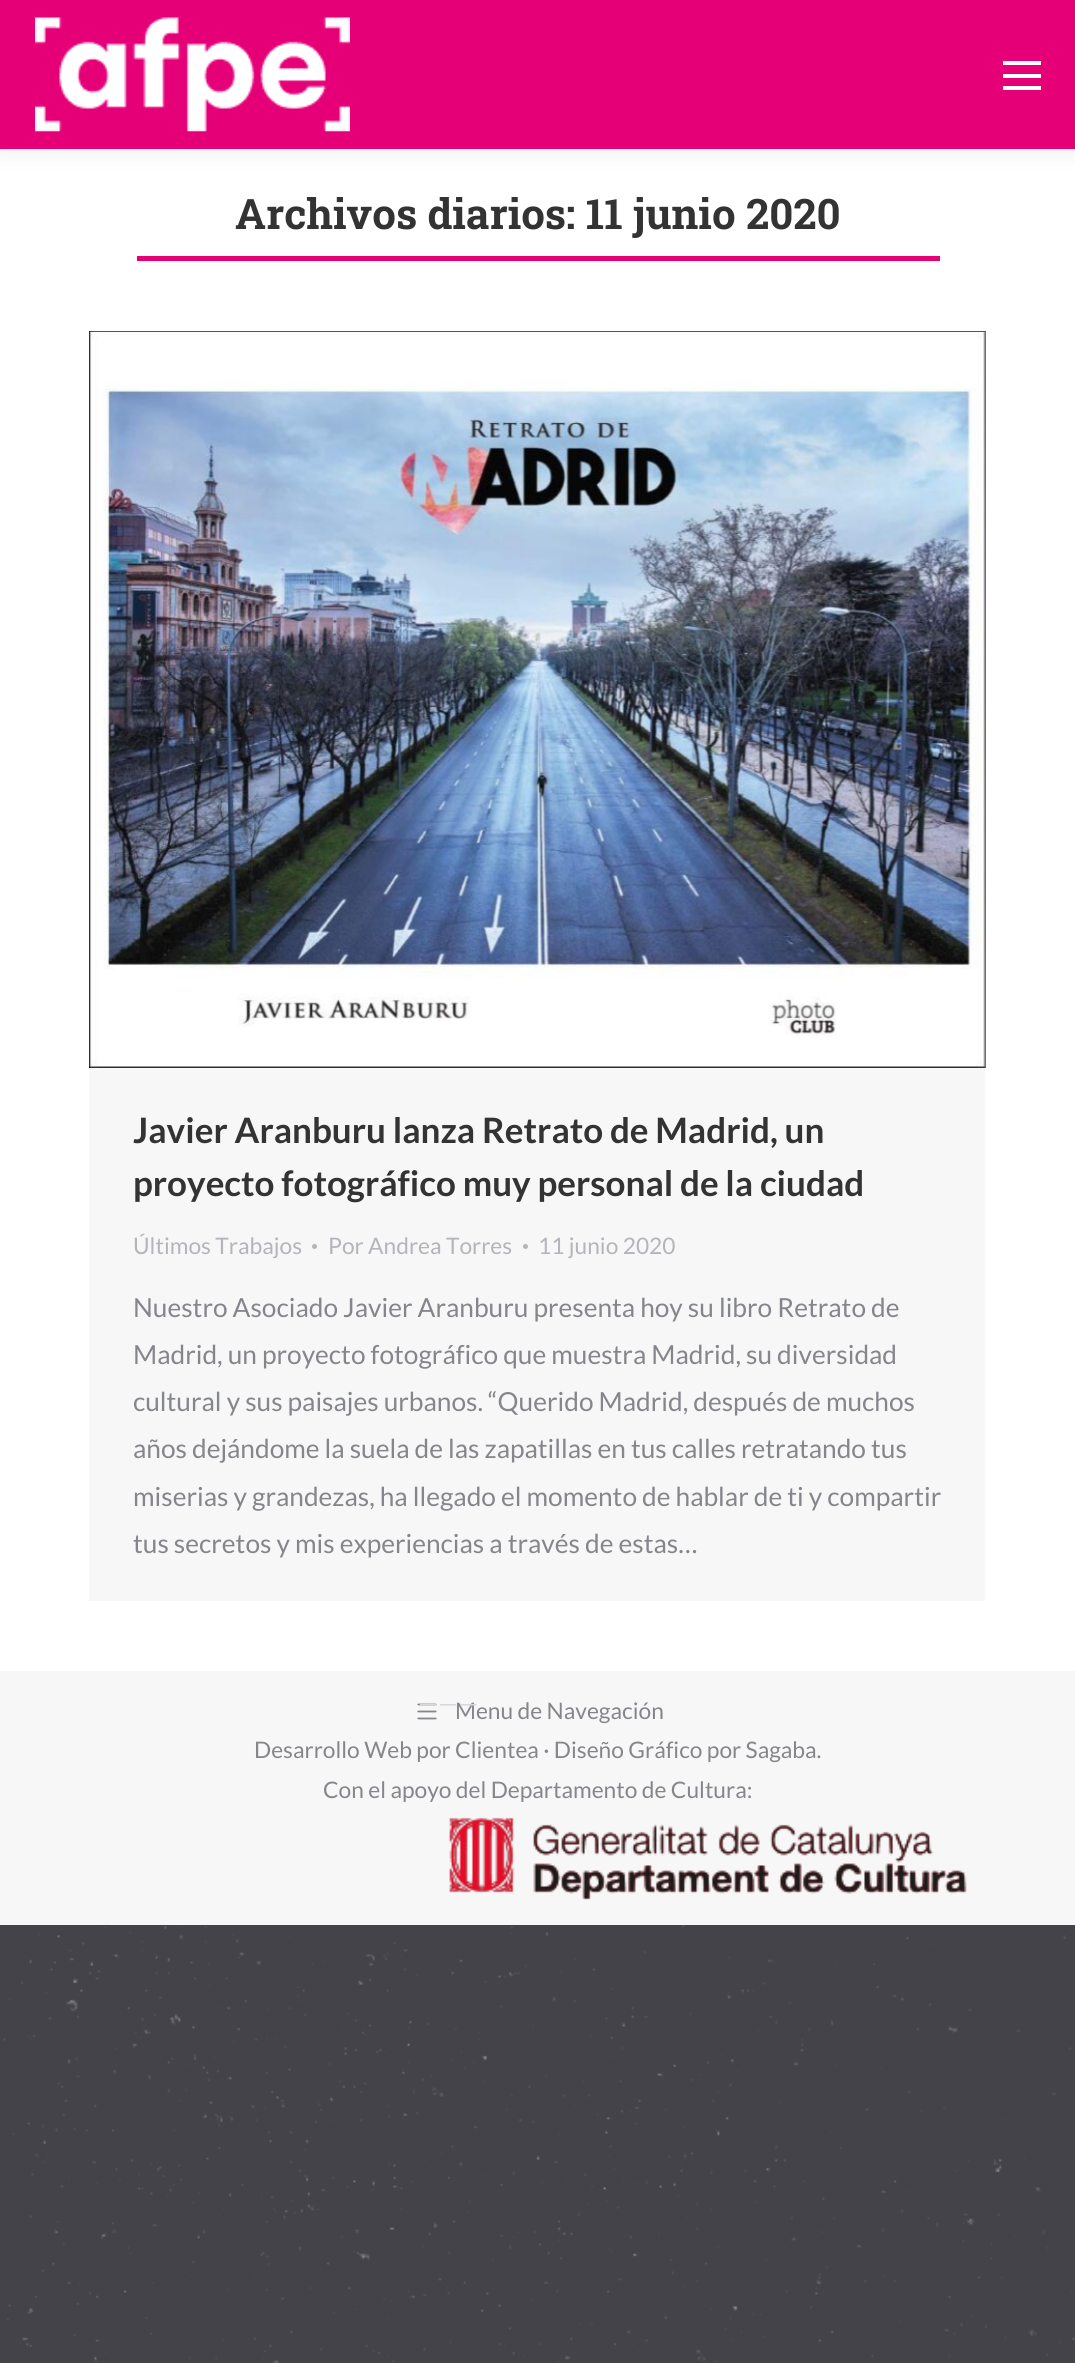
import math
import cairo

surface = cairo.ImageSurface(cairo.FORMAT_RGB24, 1075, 2363)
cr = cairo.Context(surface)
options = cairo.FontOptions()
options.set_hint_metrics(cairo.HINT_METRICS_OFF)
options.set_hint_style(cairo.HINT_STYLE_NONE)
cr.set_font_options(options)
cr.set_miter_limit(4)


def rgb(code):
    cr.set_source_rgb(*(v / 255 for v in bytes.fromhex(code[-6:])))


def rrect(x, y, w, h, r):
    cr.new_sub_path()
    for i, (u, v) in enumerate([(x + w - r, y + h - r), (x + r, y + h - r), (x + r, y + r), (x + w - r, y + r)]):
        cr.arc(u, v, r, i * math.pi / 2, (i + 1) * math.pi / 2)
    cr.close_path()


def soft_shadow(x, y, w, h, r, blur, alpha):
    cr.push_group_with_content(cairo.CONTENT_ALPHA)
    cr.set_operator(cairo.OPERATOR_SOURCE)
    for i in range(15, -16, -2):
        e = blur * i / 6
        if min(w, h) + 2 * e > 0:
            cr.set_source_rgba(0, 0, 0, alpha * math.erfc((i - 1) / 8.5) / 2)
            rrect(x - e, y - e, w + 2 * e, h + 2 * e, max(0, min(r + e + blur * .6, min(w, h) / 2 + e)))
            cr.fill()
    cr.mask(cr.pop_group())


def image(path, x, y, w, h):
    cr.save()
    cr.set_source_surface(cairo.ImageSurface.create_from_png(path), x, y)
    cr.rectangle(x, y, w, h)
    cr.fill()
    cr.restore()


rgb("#ffffff")
cr.paint()
image("img/1.png", 0, 1925, 1075, 438)
rgb("#000000")
soft_shadow(-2, -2, 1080, 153, 0, 13, 0.07)
rgb("#e50078")
cr.rectangle(0, 0, 1075, 149)
cr.fill()
image("img/2.png", 35, 17, 315, 115)
for x, y, w, h, color in [
    (1003, 61, 38, 4, "#ffffff"),
    (1003, 74, 38, 4, "#ffffff"),
    (1003, 86, 38, 4, "#ffffff"),
    (137, 256, 803, 5, "#e50076"),
    (89, 331, 896, 1270, "#f7f7f7"),
]:
    rgb(color)
    cr.rectangle(x, y, w, h)
    cr.fill()
image("img/3.png", 89, 331, 897, 737)
rgb("#b4b5bb")
cr.arc(314.5, 1246.5, 2.5, 0, 2 * math.pi)
cr.fill()
cr.arc(525.5, 1246.5, 2.5, 0, 2 * math.pi)
cr.fill()
rgb("#f7f7f7")
cr.rectangle(0, 1671, 1075, 254)
cr.fill()
image("img/4.png", 417, 1703, 20, 17)
image("img/5.png", 449, 1817, 518, 83)
cr.select_font_face("Roboto Slab", cairo.FONT_SLANT_NORMAL, cairo.FONT_WEIGHT_BOLD)
cr.set_font_size(42)
rgb("#333333")
cr.move_to(235, 229)
cr.show_text("Archivos diarios: 11 junio 2020")
cr.select_font_face("Lato", cairo.FONT_SLANT_NORMAL, cairo.FONT_WEIGHT_BOLD)
cr.set_font_size(35)
cr.move_to(133, 1143)
cr.show_text("Javier Aranburu lanza Retrato de Madrid, un")
cr.move_to(133, 1196)
cr.show_text("proyecto fotográfico muy personal de la ciudad")
cr.select_font_face("Lato")
cr.set_font_size(22.75)
rgb("#b4b5bb")
for x, y, s in [
    (133, 1254, "Últimos Trabajos"),
    (328, 1254, "Por Andrea Torres"),
    (538, 1254, "11 junio 2020"),
]:
    cr.move_to(x, y)
    cr.show_text(s)
cr.set_font_size(26.25)
rgb("#85868c")
for x, y, s in [
    (133, 1317, "Nuestro Asociado Javier Aranburu presenta hoy su libro Retrato de"),
    (133, 1364, "Madrid, un proyecto fotográfico que muestra Madrid, su diversidad"),
    (133, 1411, "cultural y sus paisajes urbanos. “Querido Madrid, después de muchos"),
    (133, 1458, "años dejándome la suela de las zapatillas en tus calles retratando tus"),
    (133, 1506, "miserias y grandezas, ha llegado el momento de hablar de ti y compartir"),
    (133, 1553, "tus secretos y mis experiencias a través de estas…"),
]:
    cr.move_to(x, y)
    cr.show_text(s)
cr.set_font_size(22.75)
cr.move_to(455, 1719)
cr.show_text("Menu de Navegación")
cr.set_font_size(24.5)
rgb("#d8d8da")
cr.move_to(418, 1712)
cr.show_text("———")
cr.set_font_size(22.75)
rgb("#85868c")
cr.move_to(254, 1758)
cr.show_text("Desarrollo Web por Clientea · Diseño Gráfico por Sagaba.")
cr.move_to(323, 1798)
cr.show_text("Con el apoyo del Departamento de Cultura:")
surface.write_to_png("page.png")
